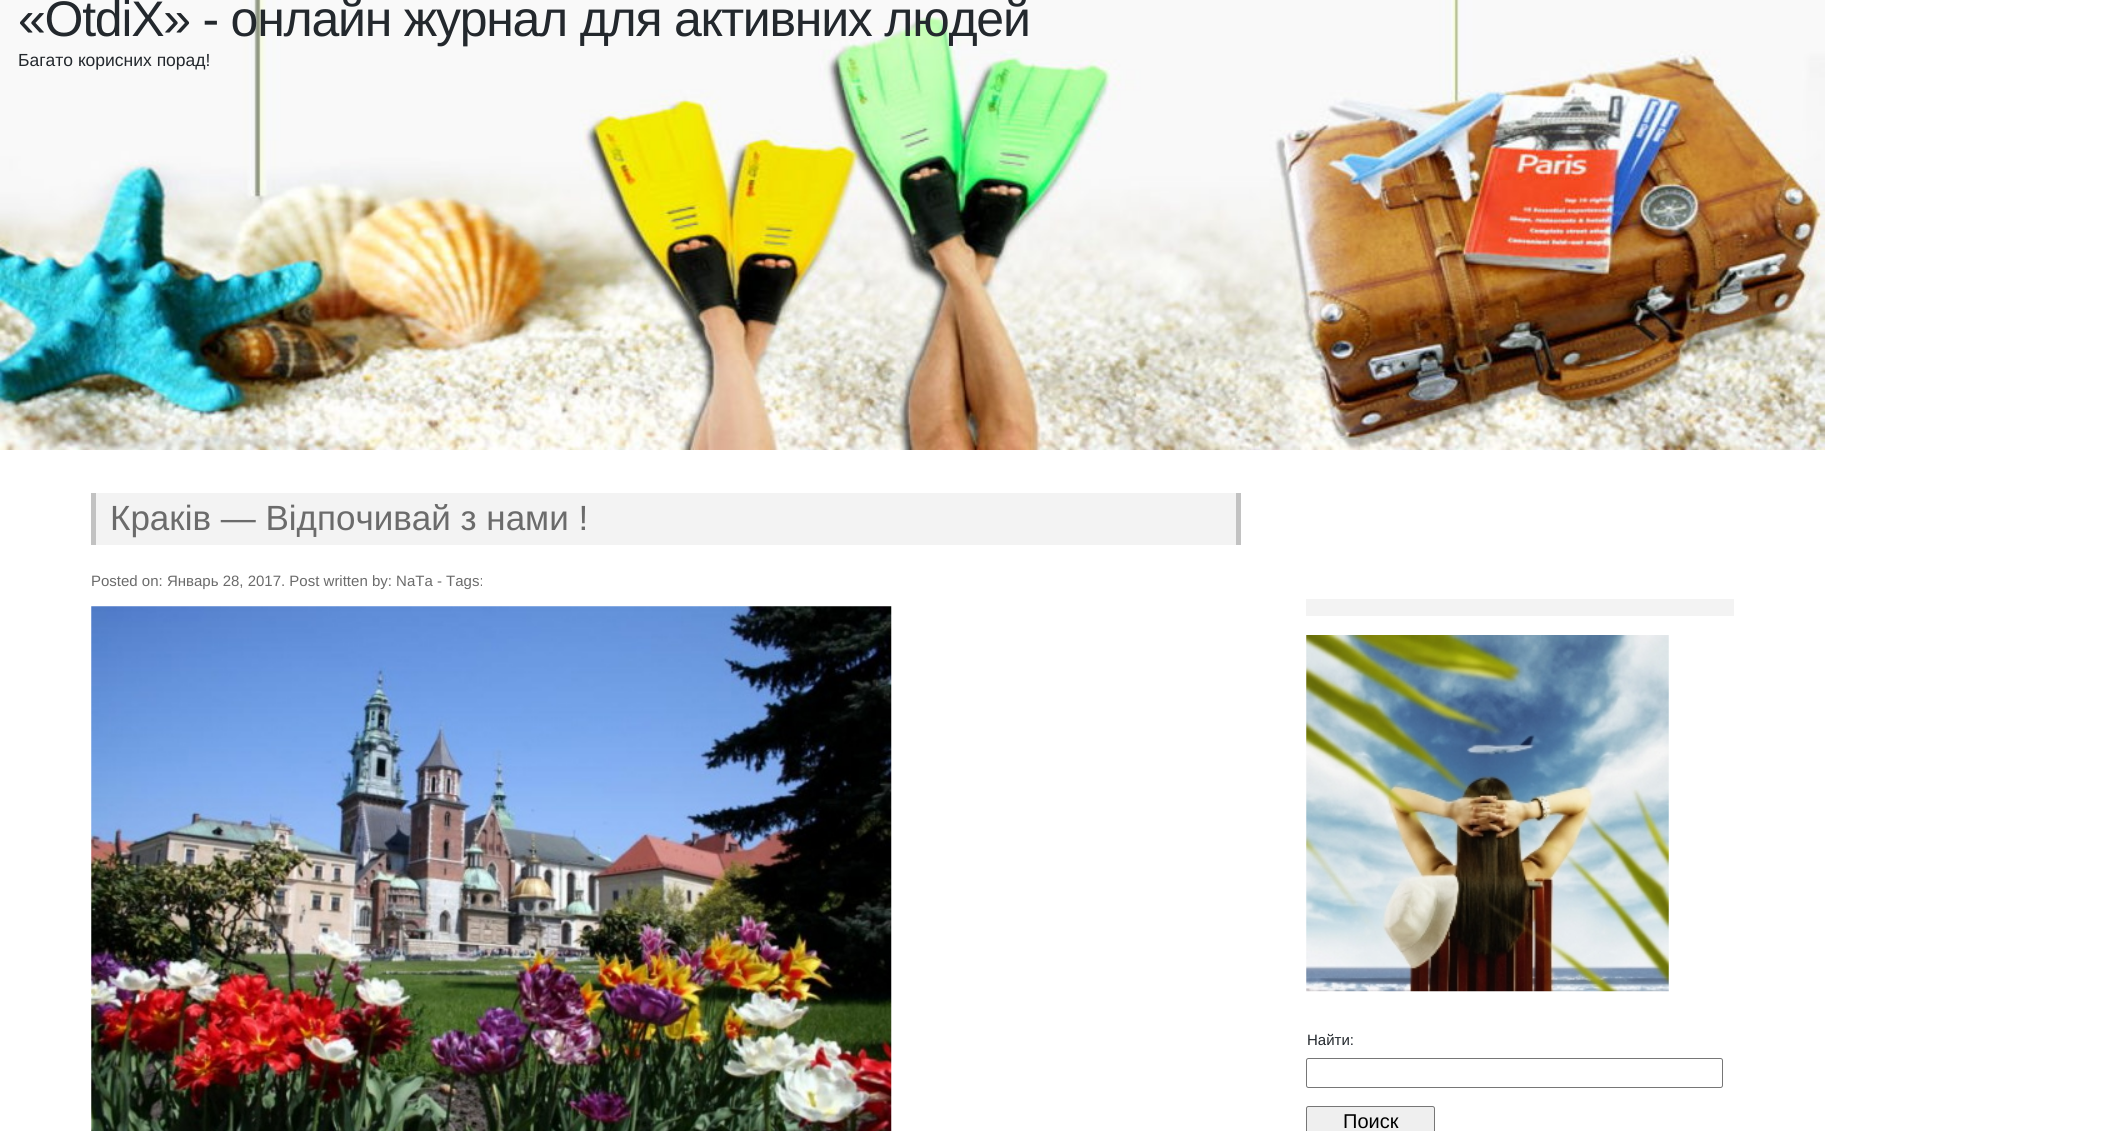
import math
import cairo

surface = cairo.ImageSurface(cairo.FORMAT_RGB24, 2118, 1131)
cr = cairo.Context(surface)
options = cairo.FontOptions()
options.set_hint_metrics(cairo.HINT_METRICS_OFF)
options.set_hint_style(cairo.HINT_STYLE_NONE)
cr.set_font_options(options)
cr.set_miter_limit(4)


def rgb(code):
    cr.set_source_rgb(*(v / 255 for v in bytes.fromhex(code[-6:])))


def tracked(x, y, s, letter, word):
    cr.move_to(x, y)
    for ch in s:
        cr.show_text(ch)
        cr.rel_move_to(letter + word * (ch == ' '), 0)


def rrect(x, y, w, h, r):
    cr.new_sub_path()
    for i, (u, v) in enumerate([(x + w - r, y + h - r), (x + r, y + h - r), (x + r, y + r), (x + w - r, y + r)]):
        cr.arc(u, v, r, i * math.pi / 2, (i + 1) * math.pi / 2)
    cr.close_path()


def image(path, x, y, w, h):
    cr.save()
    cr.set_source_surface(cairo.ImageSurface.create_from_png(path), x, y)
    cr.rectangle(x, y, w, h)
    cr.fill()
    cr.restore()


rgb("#ffffff")
cr.paint()
image("img/1.png", 0, 0, 1825, 450)
for x, y, w, h, color in [
    (96, 493, 1140, 52, "#f3f3f3"),
    (1236, 493, 5, 52, "#c2c2c2"),
    (91, 493, 5, 52, "#c2c2c2"),
]:
    rgb(color)
    cr.rectangle(x, y, w, h)
    cr.fill()
image("img/2.png", 91, 606, 801, 525)
rgb("#f3f3f3")
cr.rectangle(1306, 599, 428, 17)
cr.fill()
image("img/3.png", 1306, 635, 363, 357)
rrect(1306.5, 1058.5, 416, 29, 2)
rgb("#767676")
cr.set_line_width(1)
cr.stroke()
rgb("#efefef")
rrect(1306.5, 1106.5, 128, 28, 2)
cr.fill_preserve()
rgb("#767676")
cr.stroke()
cr.select_font_face("Liberation Sans")
cr.set_font_size(50)
rgb("#23282d")
tracked(18, 36, "«OtdiX» - онлайн журнал для активних людей", -1.25, 0)
cr.set_font_size(17.5)
cr.move_to(18, 66)
cr.show_text("Багато корисних порад!")
cr.set_font_size(35)
rgb("#6b6b6b")
cr.move_to(110, 530)
cr.show_text("Краків — Відпочивай з нами !")
cr.set_font_size(15)
cr.move_to(91, 586)
cr.show_text("Posted on: Январь 28, 2017. Post written by: NaTa - Tags:")
rgb("#23282d")
cr.move_to(1307, 1045)
cr.show_text("Найти:")
cr.set_font_size(20)
rgb("#000000")
cr.move_to(1343, 1128)
cr.show_text("Поиск")
surface.write_to_png("page.png")
